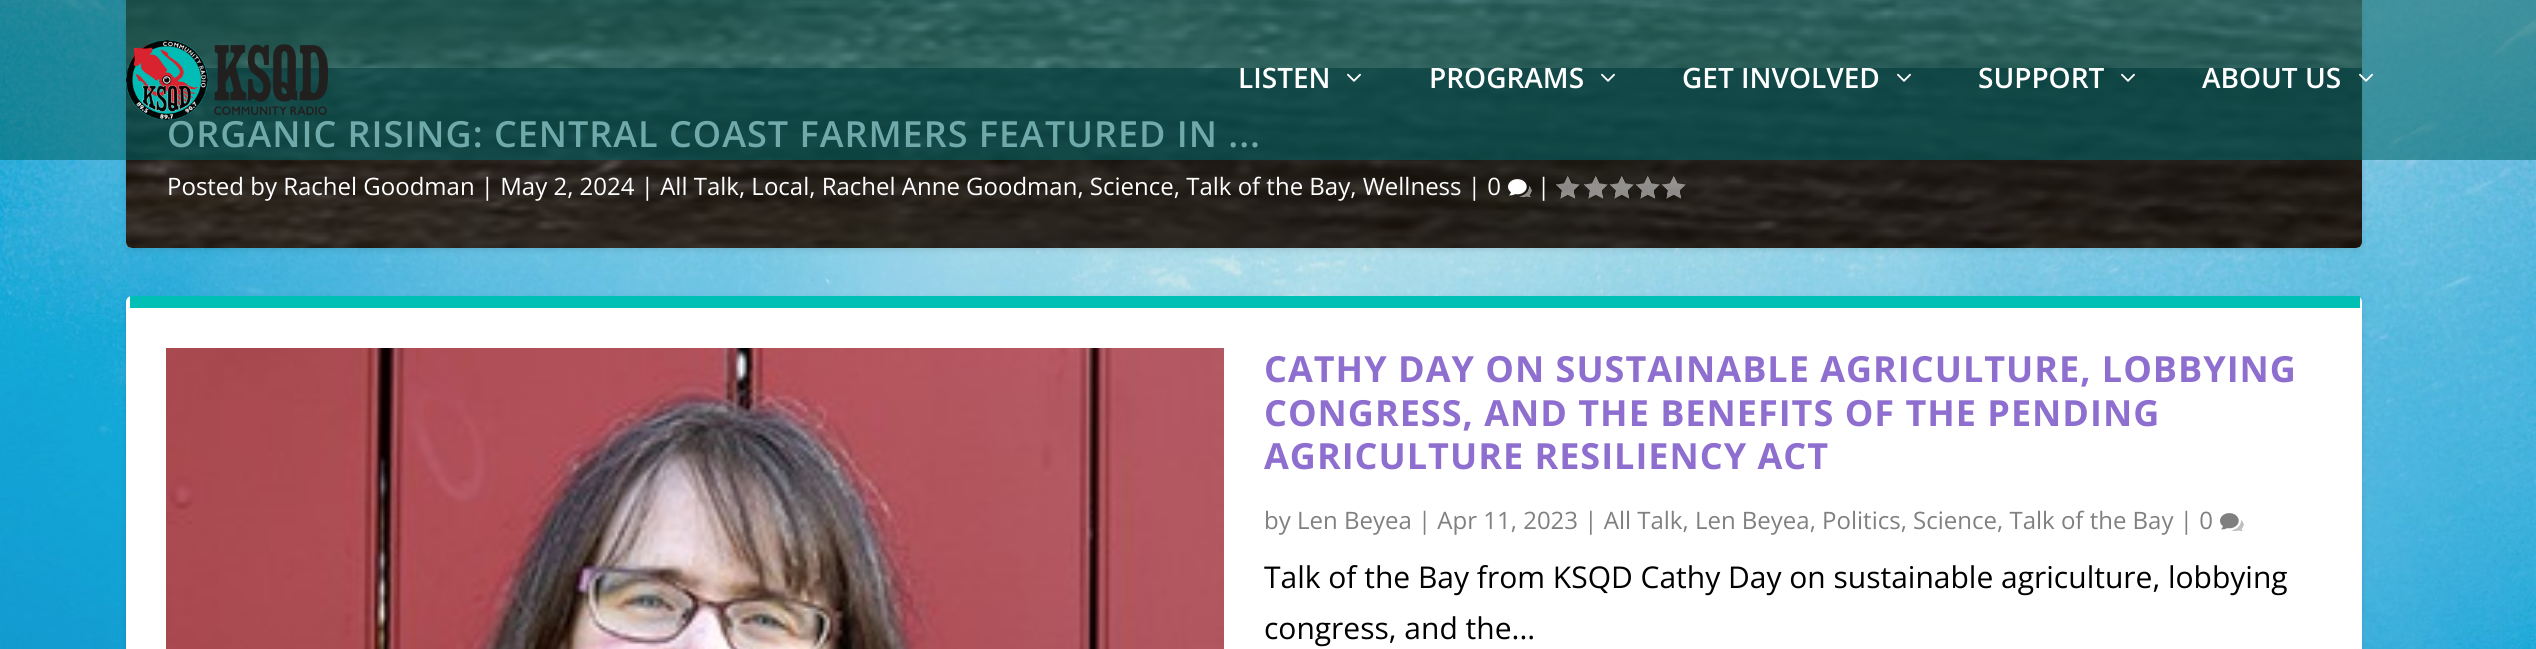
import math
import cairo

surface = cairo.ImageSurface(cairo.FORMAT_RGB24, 2536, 649)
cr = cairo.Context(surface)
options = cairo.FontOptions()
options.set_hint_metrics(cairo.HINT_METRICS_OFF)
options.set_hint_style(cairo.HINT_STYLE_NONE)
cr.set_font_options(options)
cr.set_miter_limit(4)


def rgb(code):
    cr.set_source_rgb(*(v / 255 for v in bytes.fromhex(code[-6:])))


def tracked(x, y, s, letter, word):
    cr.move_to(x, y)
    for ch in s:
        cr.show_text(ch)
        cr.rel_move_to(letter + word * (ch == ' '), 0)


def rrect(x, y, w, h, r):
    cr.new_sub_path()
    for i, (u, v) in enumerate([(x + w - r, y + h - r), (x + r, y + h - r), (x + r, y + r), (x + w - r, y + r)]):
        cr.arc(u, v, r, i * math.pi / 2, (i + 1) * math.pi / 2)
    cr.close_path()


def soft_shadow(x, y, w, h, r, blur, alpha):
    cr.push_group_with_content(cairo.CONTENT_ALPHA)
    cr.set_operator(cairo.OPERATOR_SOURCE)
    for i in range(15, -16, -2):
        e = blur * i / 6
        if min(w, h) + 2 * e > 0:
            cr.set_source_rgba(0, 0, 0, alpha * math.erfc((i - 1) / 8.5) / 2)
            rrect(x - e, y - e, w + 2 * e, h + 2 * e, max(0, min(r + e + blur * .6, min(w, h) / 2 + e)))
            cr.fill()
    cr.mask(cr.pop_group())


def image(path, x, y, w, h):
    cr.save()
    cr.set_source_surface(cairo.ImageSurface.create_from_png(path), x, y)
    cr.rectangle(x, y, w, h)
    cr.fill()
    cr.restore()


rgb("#ffffff")
cr.paint()
image("img/1.png", 0, 0, 2536, 649)
rgb("#000000")
soft_shadow(126, -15, 2236, 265, 6, 3, 0.1)
rgb("#ffffff")
rrect(126, -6, 2236, 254, 6)
cr.fill()
image("img/8.png", 126, 0, 2236, 248)
cr.set_source_rgba(0, 0, 0, 0.6)
cr.new_path()
cr.move_to(126, 68)
cr.line_to(2362, 68)
cr.line_to(2362, 242)
cr.curve_to(2362, 245.5, 2359.5, 248, 2356, 248)
cr.line_to(132, 248)
cr.curve_to(128.5, 248, 126, 245.5, 126, 242)
cr.close_path()
cr.fill()
image("img/9.png", 1508, 179, 24, 19)
image("img/10.png", 1556, 176, 24, 23)
image("img/11.png", 1584, 176, 24, 23)
image("img/12.png", 1610, 176, 24, 23)
image("img/13.png", 1636, 176, 24, 23)
image("img/14.png", 1662, 176, 24, 23)
rgb("#000000")
soft_shadow(126, 298, 2236, 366, 6, 3, 0.1)
rgb("#ffffff")
rrect(126, 296, 2236, 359, 6)
cr.fill()
rgb("#00c0b5")
cr.rectangle(130, 296, 2230, 12)
cr.fill()
image("img/15.png", 166, 348, 1058, 301)
image("img/16.png", 2220, 513, 24, 18)
cr.select_font_face("Open Sans SemiBold")
cr.set_font_size(36)
rgb("#ffffff")
tracked(167, 147, "ORGANIC RISING: CENTRAL COAST FARMERS FEATURED IN ...", 1, 0)
cr.set_source_rgba(0, 0.4, 0.408, 0.56)
cr.rectangle(0, 0, 2536, 160)
cr.fill()
image("img/7.png", 2359, 73, 14, 9)
cr.set_font_size(28)
rgb("#ffffff")
cr.move_to(2202, 88)
cr.show_text("ABOUT US")
image("img/6.png", 2121, 73, 14, 9)
cr.move_to(1978, 88)
cr.show_text("SUPPORT")
image("img/5.png", 1897, 73, 14, 9)
cr.move_to(1682, 88)
cr.show_text("GET INVOLVED")
image("img/4.png", 1601, 73, 14, 9)
cr.move_to(1429, 88)
cr.show_text("PROGRAMS")
image("img/3.png", 1347, 73, 14, 9)
cr.move_to(1238, 88)
cr.show_text("LISTEN")
image("img/2.png", 126, 40, 202, 80)
cr.select_font_face("Open Sans")
cr.set_font_size(24)
cr.move_to(167, 195)
cr.show_text("Posted by Rachel Goodman | May 2, 2024 | All Talk, Local, Rachel Anne Goodman, Science, Talk of the Bay, Wellness | 0")
cr.move_to(1537, 195)
cr.show_text("|")
cr.select_font_face("Open Sans", cairo.FONT_SLANT_NORMAL, cairo.FONT_WEIGHT_BOLD)
cr.set_font_size(36)
rgb("#8e6ecf")
for x, y, s in [
    (1264, 382, "CATHY DAY ON SUSTAINABLE AGRICULTURE, LOBBYING"),
    (1264, 426, "CONGRESS, AND THE BENEFITS OF THE PENDING"),
    (1264, 469, "AGRICULTURE RESILIENCY ACT"),
]:
    tracked(x, y, s, 1, 0)
cr.select_font_face("Open Sans")
cr.set_font_size(24)
rgb("#808080")
cr.move_to(1264, 529)
cr.show_text("by Len Beyea | Apr 11, 2023 | All Talk, Len Beyea, Politics, Science, Talk of the Bay | 0")
cr.set_font_size(30)
rgb("#000000")
cr.move_to(1264, 588)
cr.show_text("Talk of the Bay from KSQD Cathy Day on sustainable agriculture, lobbying")
cr.move_to(1264, 639)
cr.show_text("congress, and the...")
surface.write_to_png("page.png")
